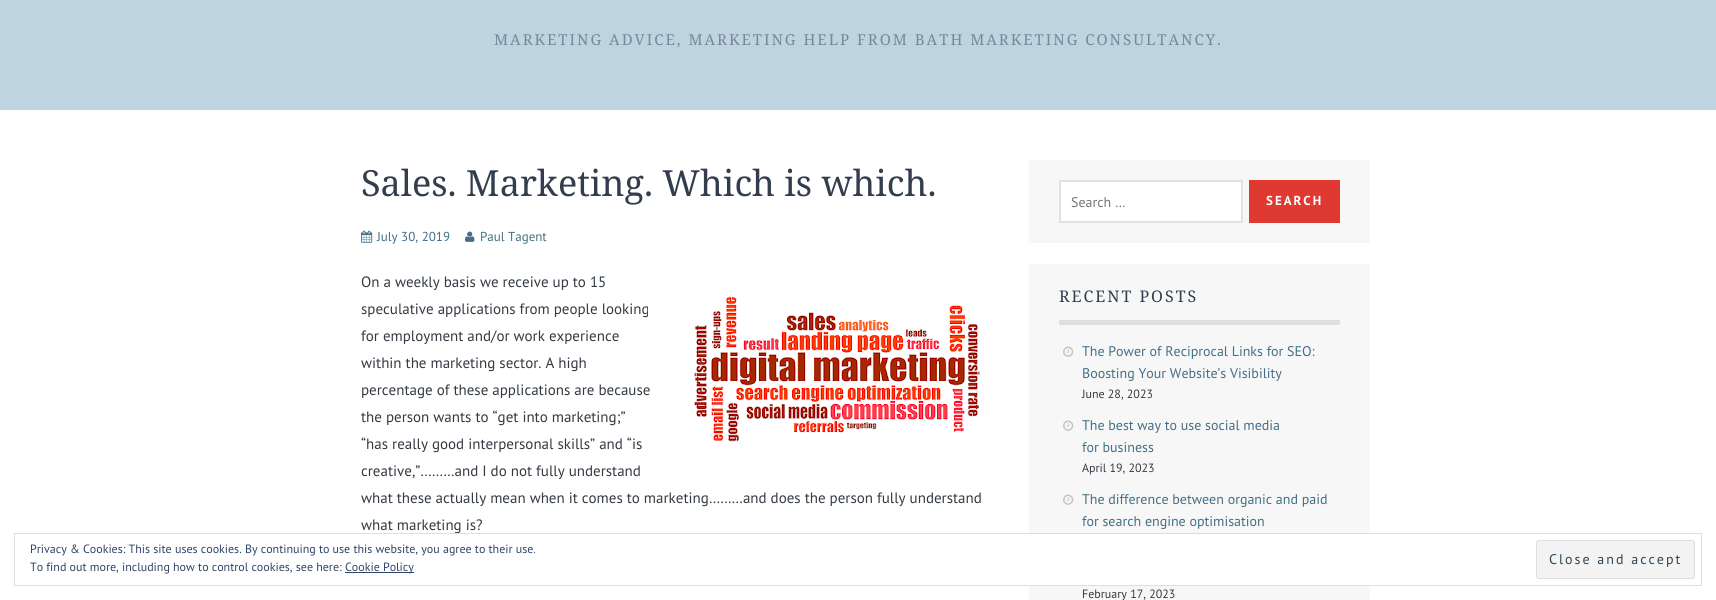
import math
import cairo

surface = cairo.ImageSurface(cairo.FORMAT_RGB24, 1716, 600)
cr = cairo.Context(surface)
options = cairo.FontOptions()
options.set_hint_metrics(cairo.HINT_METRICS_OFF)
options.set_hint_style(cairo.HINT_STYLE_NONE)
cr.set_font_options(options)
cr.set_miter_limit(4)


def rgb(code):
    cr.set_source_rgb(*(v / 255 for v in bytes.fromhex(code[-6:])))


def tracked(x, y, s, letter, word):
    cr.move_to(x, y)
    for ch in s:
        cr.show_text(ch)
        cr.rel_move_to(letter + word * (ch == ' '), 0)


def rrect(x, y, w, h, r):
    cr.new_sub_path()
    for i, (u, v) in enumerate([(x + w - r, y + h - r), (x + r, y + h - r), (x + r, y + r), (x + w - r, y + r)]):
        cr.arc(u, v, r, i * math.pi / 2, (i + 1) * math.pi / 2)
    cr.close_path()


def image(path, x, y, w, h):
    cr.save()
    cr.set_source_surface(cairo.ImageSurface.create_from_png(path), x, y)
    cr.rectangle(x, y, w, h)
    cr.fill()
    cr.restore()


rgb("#ffffff")
cr.paint()
rgb("#bed4df")
cr.rectangle(0, 0, 1716, 110)
cr.fill()
image("img/1.png", 361, 230, 12, 13)
image("img/2.png", 465, 231, 10, 11)
image("img/3.png", 694, 296, 286, 146)
rgb("#f7f7f7")
cr.rectangle(1029, 160, 341, 83)
cr.fill()
rgb("#ffffff")
cr.rectangle(1060, 181, 182, 41)
cr.fill_preserve()
rgb("#e2e2e2")
cr.stroke()
for x, y, w, h, color in [
    (1249, 180, 91, 43, "#de3a31"),
    (1029, 264, 341, 336, "#f7f7f7"),
    (1059, 320, 281, 5, "#dfdfdf"),
]:
    rgb(color)
    cr.rectangle(x, y, w, h)
    cr.fill()
image("img/4.png", 1063, 346, 11, 11)
image("img/4.png", 1063, 420, 11, 11)
image("img/4.png", 1063, 494, 11, 11)
rgb("#ffffff")
cr.rectangle(1029, 534, 341, 51)
cr.fill()
cr.select_font_face("Noto Serif")
cr.set_font_size(15)
rgb("#778899")
tracked(494, 45, "MARKETING ADVICE, MARKETING HELP FROM BATH MARKETING CONSULTANCY.", 2, 0)
cr.set_font_size(36)
rgb("#323e4e")
cr.move_to(361, 196)
cr.show_text("Sales. Marketing. Which is which.")
cr.select_font_face("PT Sans")
cr.set_font_size(13)
rgb("#426f86")
cr.move_to(377, 241)
cr.show_text("July 30, 2019")
cr.move_to(480, 241)
cr.show_text("Paul Tagent")
cr.set_font_size(15)
rgb("#333a42")
for x, y, s in [
    (361, 287, "On a weekly basis we receive up to 15"),
    (361, 314, "speculative applications from people looking"),
    (361, 341, "for employment and/or work experience"),
    (361, 368, "within the marketing sector. A high"),
    (361, 395, "percentage of these applications are because"),
    (361, 422, "the person wants to “get into marketing;”"),
    (361, 449, "“has really good interpersonal skills” and “is"),
    (361, 476, "creative,”………and I do not fully understand"),
    (361, 503, "what these actually mean when it comes to marketing………and does the person fully understand"),
    (361, 530, "what marketing is?"),
]:
    cr.move_to(x, y)
    cr.show_text(s)
cr.set_font_size(14)
rgb("#757575")
cr.move_to(1071, 207)
cr.show_text("Search …")
cr.select_font_face("PT Sans", cairo.FONT_SLANT_NORMAL, cairo.FONT_WEIGHT_BOLD)
cr.set_font_size(13)
rgb("#ffffff")
tracked(1266, 205, "SEARCH", 2, 0)
cr.select_font_face("Noto Serif")
cr.set_font_size(16)
rgb("#323e4e")
tracked(1059, 302, "RECENT POSTS", 2, 0)
cr.select_font_face("PT Sans")
cr.set_font_size(14)
rgb("#426f86")
cr.move_to(1082, 356)
cr.show_text("The Power of Reciprocal Links for SEO:")
cr.move_to(1082, 378)
cr.show_text("Boosting Your Website’s Visibility")
cr.set_font_size(12)
rgb("#333a42")
cr.move_to(1082, 398)
cr.show_text("June 28, 2023")
cr.set_font_size(14)
rgb("#426f86")
cr.move_to(1082, 430)
cr.show_text("The best way to use social media")
cr.move_to(1082, 452)
cr.show_text("for business")
cr.set_font_size(12)
rgb("#333a42")
cr.move_to(1082, 472)
cr.show_text("April 19, 2023")
cr.set_font_size(14)
rgb("#426f86")
cr.move_to(1082, 504)
cr.show_text("The difference between organic and paid")
cr.move_to(1082, 526)
cr.show_text("for search engine optimisation")
cr.set_font_size(12)
rgb("#333a42")
cr.move_to(1082, 598)
cr.show_text("February 17, 2023")
cr.rectangle(14.5, 533.5, 1687, 52)
rgb("#dedede")
cr.set_line_width(1)
cr.stroke()
rgb("#2e4467")
cr.move_to(30, 553)
cr.show_text("Privacy & Cookies: This site uses cookies. By continuing to use this website, you agree to their use.")
cr.move_to(30, 571)
cr.show_text("To find out more, including how to control cookies, see here:")
cr.rectangle(345, 572, 69, 1)
cr.fill()
cr.move_to(345, 571)
cr.show_text("Cookie Policy")
rgb("#f3f3f3")
rrect(1536.5, 540.5, 158, 38, 2.5)
cr.fill_preserve()
rgb("#dedede")
cr.stroke()
cr.set_font_size(14)
rgb("#2e4453")
tracked(1549, 564, "Close and accept", 2, 0)
surface.write_to_png("page.png")
